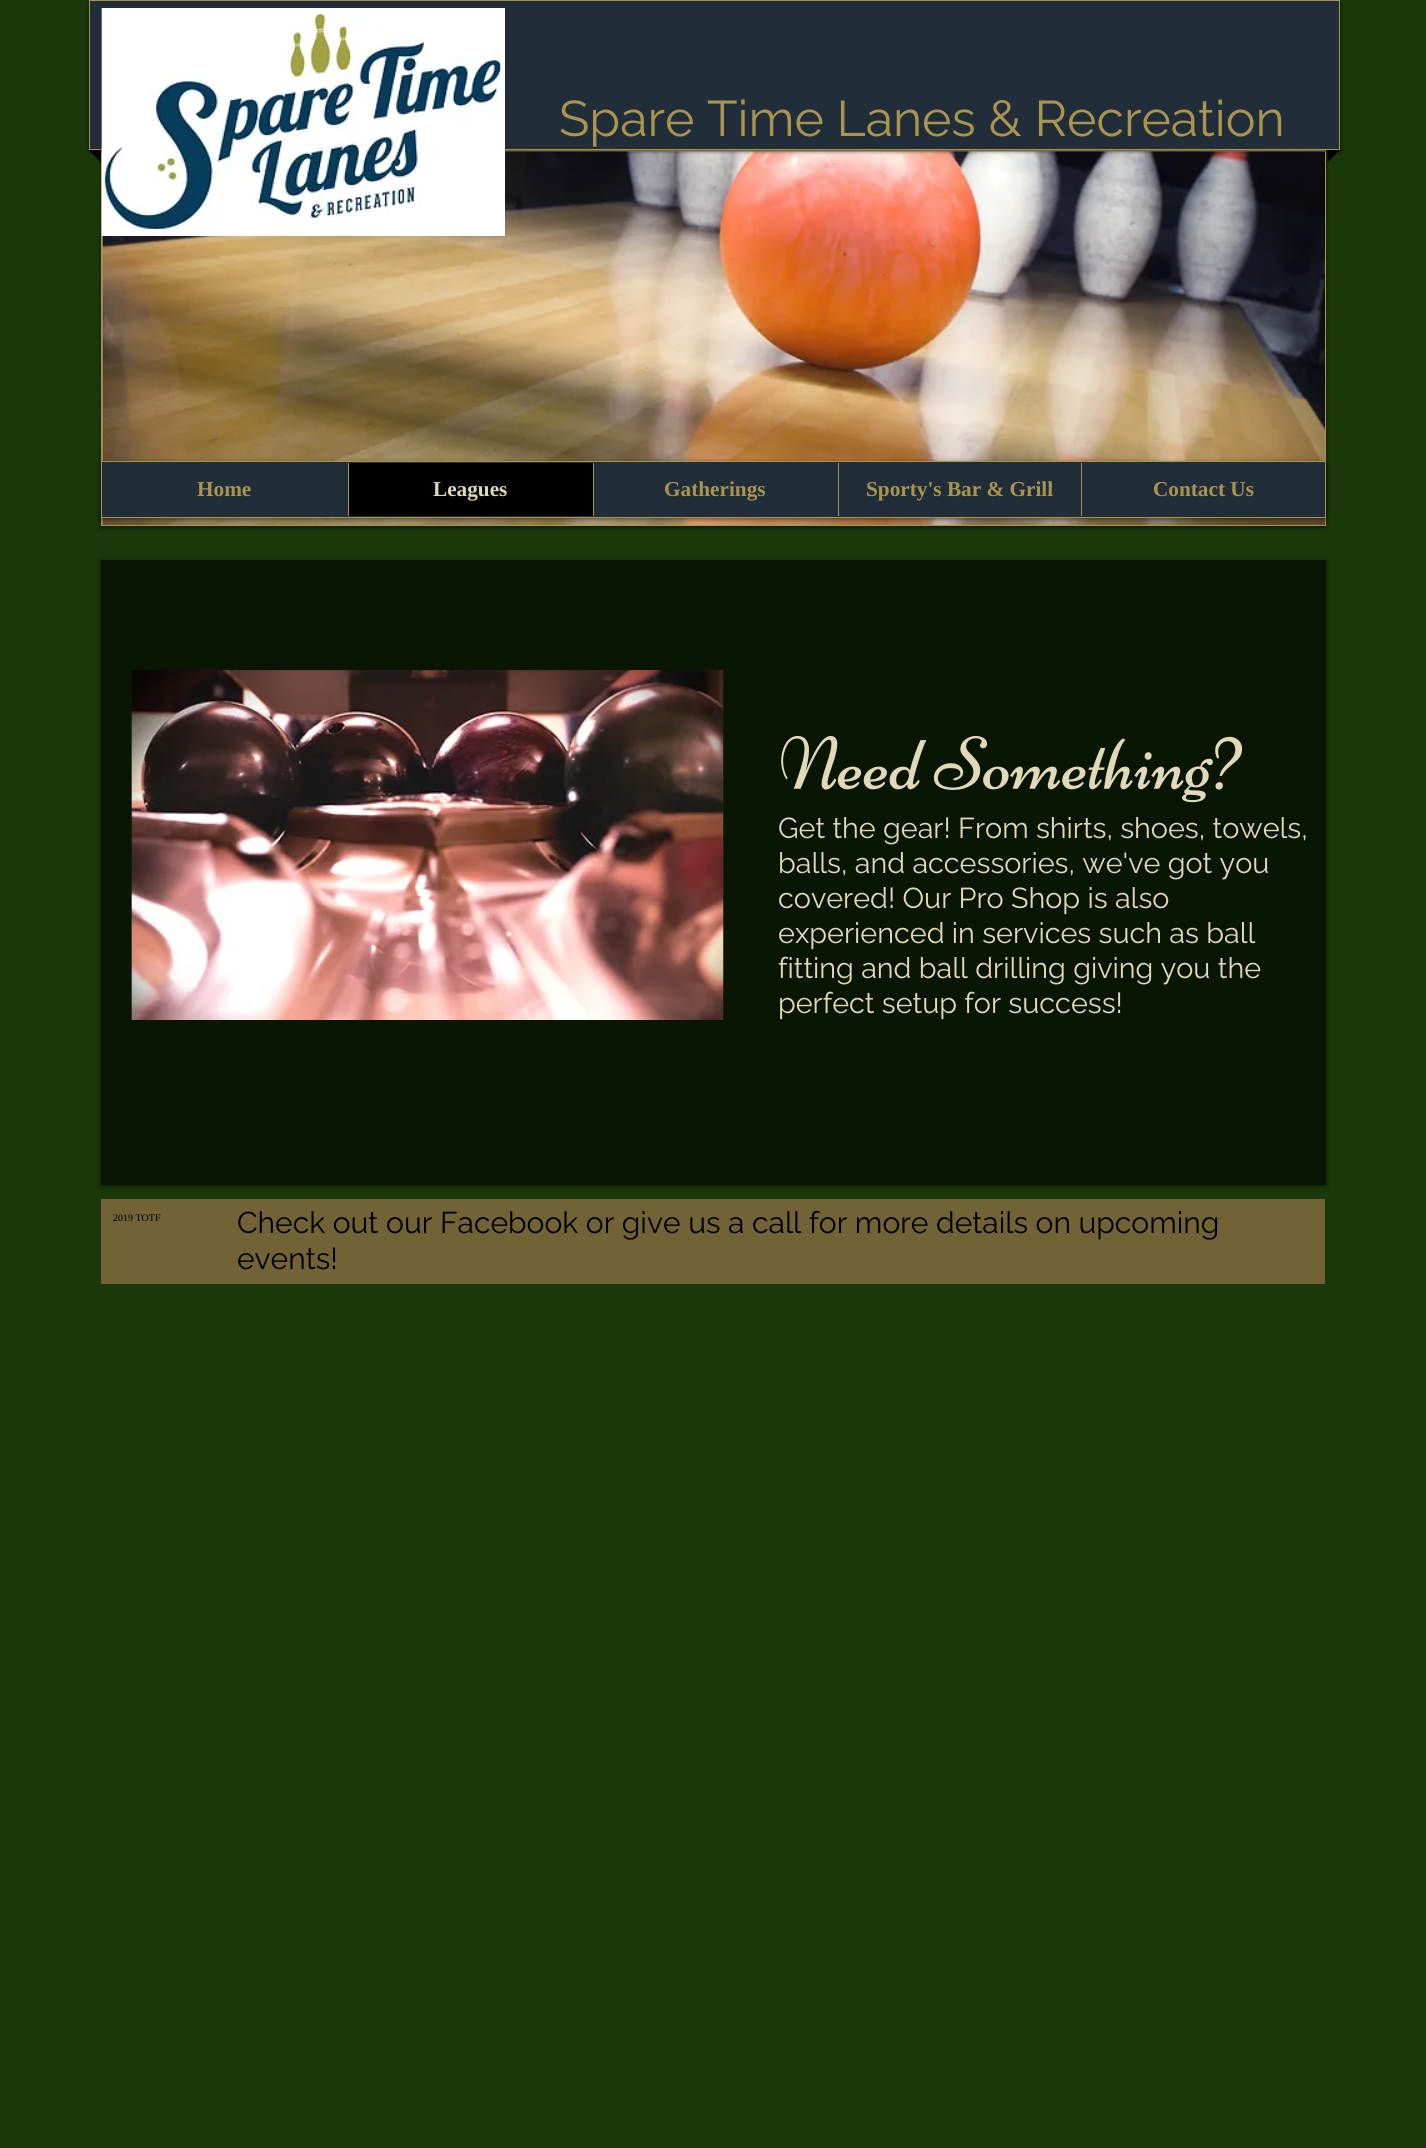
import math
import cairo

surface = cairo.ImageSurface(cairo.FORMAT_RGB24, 1426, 2148)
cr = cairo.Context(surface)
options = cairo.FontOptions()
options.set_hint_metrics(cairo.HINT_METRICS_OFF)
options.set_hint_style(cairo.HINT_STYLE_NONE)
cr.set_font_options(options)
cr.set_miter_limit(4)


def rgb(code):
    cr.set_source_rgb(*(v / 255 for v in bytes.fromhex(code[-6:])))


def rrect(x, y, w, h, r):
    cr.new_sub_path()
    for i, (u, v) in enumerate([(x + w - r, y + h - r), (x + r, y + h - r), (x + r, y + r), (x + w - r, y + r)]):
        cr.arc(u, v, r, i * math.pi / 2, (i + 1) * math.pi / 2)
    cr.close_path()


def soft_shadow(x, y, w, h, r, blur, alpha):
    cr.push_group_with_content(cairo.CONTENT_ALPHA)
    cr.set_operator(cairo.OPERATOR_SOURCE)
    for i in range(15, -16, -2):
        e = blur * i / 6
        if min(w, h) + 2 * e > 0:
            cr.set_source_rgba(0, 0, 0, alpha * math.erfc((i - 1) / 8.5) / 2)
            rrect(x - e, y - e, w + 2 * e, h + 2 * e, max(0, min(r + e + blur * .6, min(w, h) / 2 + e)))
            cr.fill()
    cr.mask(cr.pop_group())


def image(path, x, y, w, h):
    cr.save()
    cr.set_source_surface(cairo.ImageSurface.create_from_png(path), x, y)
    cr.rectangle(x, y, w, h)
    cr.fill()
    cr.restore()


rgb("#1a380a")
cr.paint()
rgb("#000000")
soft_shadow(101, 151, 1225, 377, 0, 2, 0.5)
rgb("#000000")
cr.new_path()
cr.move_to(89, 150)
cr.line_to(101, 150)
cr.line_to(101, 162.5)
cr.close_path()
cr.fill()
cr.new_path()
cr.move_to(1327.5, 150)
cr.line_to(1340, 150)
cr.line_to(1327.5, 162.5)
cr.close_path()
cr.fill()
rgb("#aa9550")
cr.rectangle(101, 150, 1225, 376)
cr.fill()
image("img/2.png", 102, 151, 1223, 374)
rgb("#000000")
soft_shadow(89, 1, 1251, 150, 0, 2.5, 0.6)
rgb("#212e39")
cr.rectangle(89.5, 0.5, 1250, 149)
cr.fill_preserve()
rgb("#aa9550")
cr.set_line_width(1)
cr.stroke()
image("img/1.png", 101, 8, 404, 228)
rgb("#000000")
soft_shadow(101, 463, 1225, 56, 0, 2.5, 0.6)
rgb("#212e39")
cr.rectangle(101.5, 461.5, 1224, 56)
cr.fill_preserve()
rgb("#aa9550")
cr.stroke()
for x, y, w, h, color in [
    (349, 463, 244, 53, "#000000"),
    (348, 463, 1, 53, "#aa9550"),
    (593, 463, 1, 53, "#aa9550"),
    (838, 463, 1, 53, "#aa9550"),
    (1081, 463, 1, 53, "#aa9550"),
]:
    rgb(color)
    cr.rectangle(x, y, w, h)
    cr.fill()
cr.save()
cr.set_fill_rule(cairo.FILL_RULE_EVEN_ODD)
cr.new_path()
cr.move_to(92, 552)
cr.line_to(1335, 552)
cr.line_to(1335, 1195)
cr.line_to(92, 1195)
cr.close_path()
cr.move_to(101, 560)
cr.line_to(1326, 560)
cr.line_to(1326, 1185)
cr.line_to(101, 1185)
cr.close_path()
cr.clip()
rgb("#000000")
soft_shadow(101, 561, 1225, 625, 0, 2.5, 0.6)
cr.restore()
cr.set_source_rgba(0, 0, 0, 0.6)
cr.rectangle(101, 560, 1225, 625)
cr.fill()
image("img/3.png", 131, 670, 593, 350)
image("img/4.png", 781, 735, 462, 68)
rgb("#716335")
cr.rectangle(101, 1199, 1224, 85)
cr.fill()
cr.select_font_face("Raleway")
cr.set_font_size(50)
rgb("#aa9550")
cr.move_to(559, 136)
cr.show_text("Spare Time Lanes & Recreation")
cr.select_font_face("Liberation Serif", cairo.FONT_SLANT_NORMAL, cairo.FONT_WEIGHT_BOLD)
cr.set_font_size(21.25)
cr.move_to(197, 496)
cr.show_text("Home")
rgb("#e2d9ba")
cr.move_to(433, 496)
cr.show_text("Leagues")
rgb("#aa9550")
for x, y, s in [
    (664, 496, "Gatherings"),
    (866, 496, "Sporty's Bar & Grill"),
    (1153, 496, "Contact Us"),
]:
    cr.move_to(x, y)
    cr.show_text(s)
cr.select_font_face("Raleway")
cr.set_font_size(28.75)
rgb("#e2d9ba")
for x, y, s in [
    (778, 838, "Get the gear! From shirts, shoes, towels,"),
    (778, 873, "balls, and accessories, we've got you"),
    (778, 908, "covered! Our Pro Shop is also"),
    (778, 943, "experienced in services such as ball"),
    (778, 978, "fitting and ball drilling giving you the"),
    (778, 1013, "perfect setup for success!"),
]:
    cr.move_to(x, y)
    cr.show_text(s)
cr.select_font_face("Liberation Serif")
cr.set_font_size(10)
rgb("#000000")
cr.move_to(113, 1221)
cr.show_text("2019 TOTF")
cr.select_font_face("Raleway")
cr.set_font_size(30)
cr.move_to(237, 1233)
cr.show_text("Check out our Facebook or give us a call for more details on upcoming")
cr.move_to(237, 1269)
cr.show_text("events!")
surface.write_to_png("page.png")
